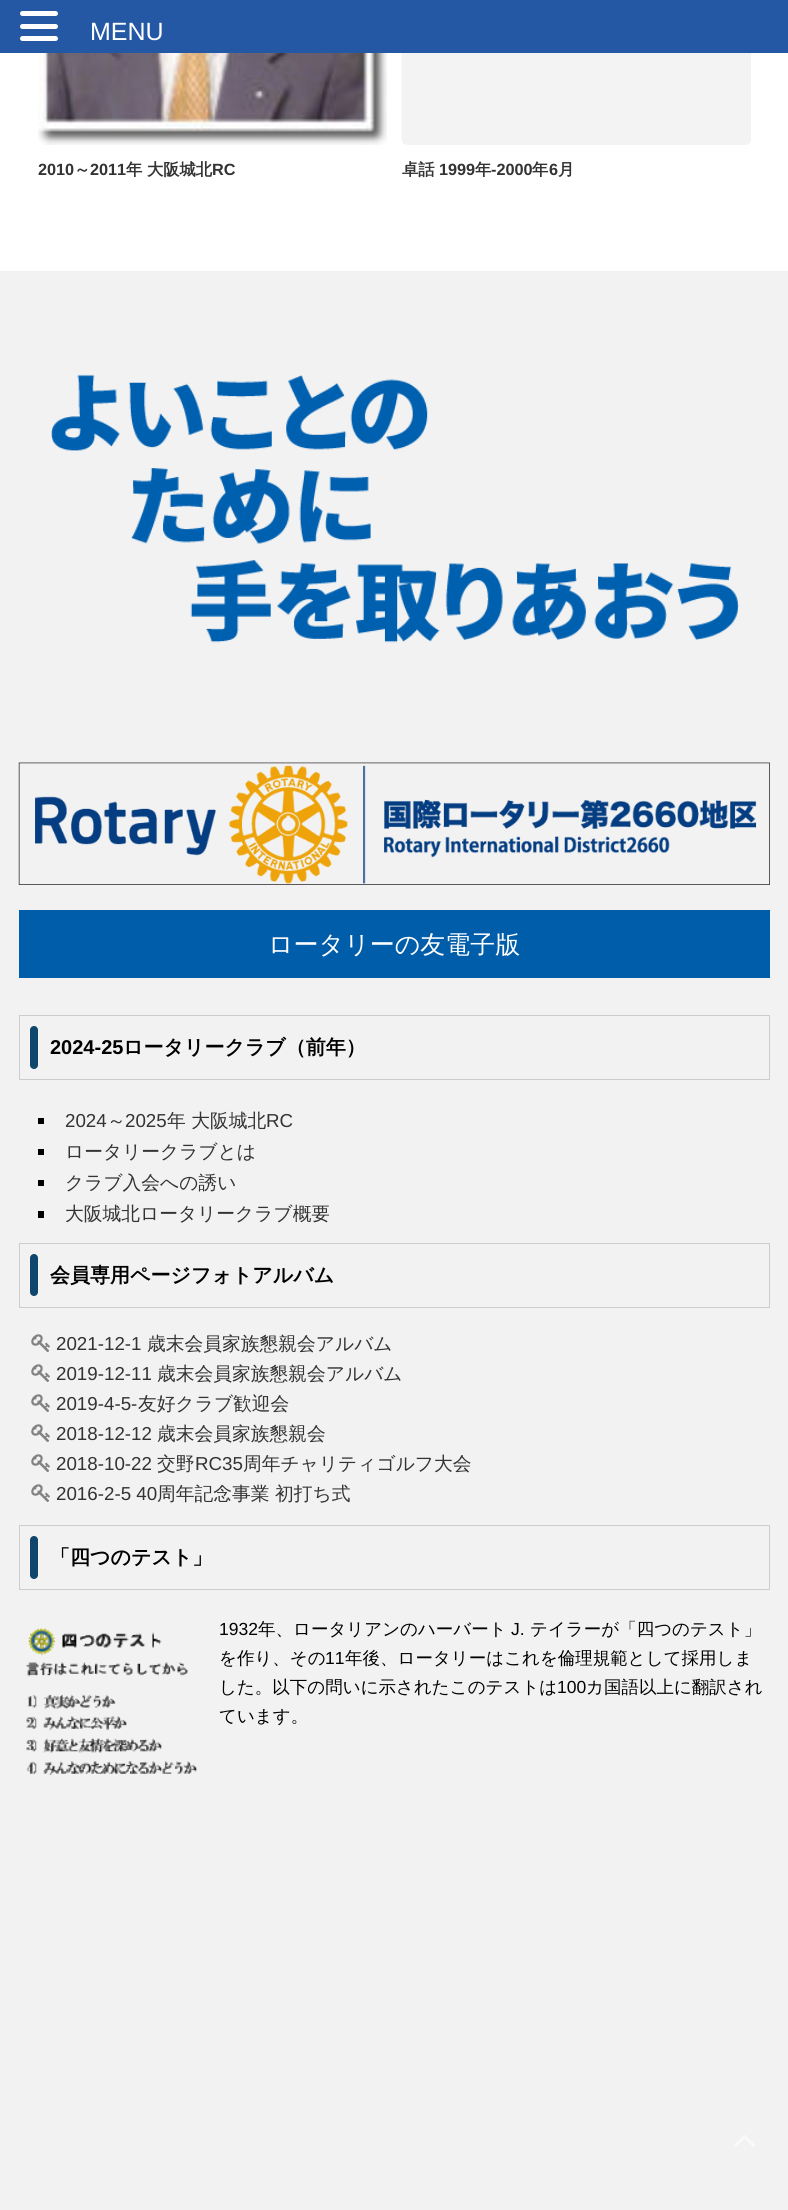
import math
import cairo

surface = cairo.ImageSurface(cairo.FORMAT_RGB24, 788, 2210)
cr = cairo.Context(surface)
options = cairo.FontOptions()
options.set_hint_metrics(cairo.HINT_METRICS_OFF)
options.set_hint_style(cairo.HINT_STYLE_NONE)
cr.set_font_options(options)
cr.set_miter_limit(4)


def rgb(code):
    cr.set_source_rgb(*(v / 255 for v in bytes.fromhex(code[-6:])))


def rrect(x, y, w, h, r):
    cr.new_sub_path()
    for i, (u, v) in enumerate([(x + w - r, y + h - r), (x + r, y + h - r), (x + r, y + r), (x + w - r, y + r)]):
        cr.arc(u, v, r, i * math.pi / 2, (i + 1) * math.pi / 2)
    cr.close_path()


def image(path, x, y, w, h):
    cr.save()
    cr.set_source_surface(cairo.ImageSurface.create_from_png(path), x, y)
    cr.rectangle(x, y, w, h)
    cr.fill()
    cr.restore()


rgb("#f2f2f2")
cr.paint()
rgb("#2458a5")
cr.rectangle(0, 0, 788, 53)
cr.fill()
rgb("#ffffff")
rrect(20, 11, 38, 5, 2.5)
cr.fill()
rrect(20, 24, 38, 5, 2.5)
cr.fill()
rrect(20, 36, 38, 5, 2.5)
cr.fill()
cr.rectangle(0, 53, 788, 218)
cr.fill()
image("img/1.png", 38, 53, 349, 92)
image("img/2.png", 401, 53, 350, 92)
image("img/3.png", 51, 374, 688, 269)
image("img/4.png", 18, 762, 752, 123)
rgb("#005daa")
cr.rectangle(19, 910, 751, 68)
cr.fill()
cr.rectangle(19.5, 1015.5, 750, 64)
rgb("#cccccc")
cr.set_line_width(1)
cr.stroke()
rgb("#10466b")
rrect(30, 1026, 8, 43, 4)
cr.fill()
for x, y, w, h, color in [
    (38, 1118, 6, 6, "#000000"),
    (38, 1149, 6, 6, "#000000"),
    (38, 1180, 6, 6, "#000000"),
    (38, 1211, 6, 7, "#000000"),
]:
    rgb(color)
    cr.rectangle(x, y, w, h)
    cr.fill()
cr.rectangle(19.5, 1243.5, 750, 64)
rgb("#cccccc")
cr.stroke()
rgb("#10466b")
rrect(30, 1254, 8, 42, 4)
cr.fill()
image("img/5.png", 31, 1334, 19, 18)
image("img/5.png", 31, 1364, 19, 18)
image("img/5.png", 31, 1394, 19, 18)
image("img/5.png", 31, 1424, 19, 18)
image("img/5.png", 31, 1454, 19, 18)
image("img/5.png", 31, 1484, 19, 18)
cr.rectangle(19.5, 1525.5, 750, 64)
rgb("#cccccc")
cr.stroke()
rgb("#10466b")
rrect(30, 1536, 8, 43, 4)
cr.fill()
image("img/6.png", 26, 1628, 171, 148)
image("img/7.png", 734, 2135, 21, 12)
cr.select_font_face("Liberation Sans")
cr.set_font_size(25)
rgb("#ffffff")
cr.move_to(90, 40)
cr.show_text("MENU")
cr.select_font_face("Liberation Sans", cairo.FONT_SLANT_NORMAL, cairo.FONT_WEIGHT_BOLD)
cr.set_font_size(16.25)
rgb("#333333")
cr.move_to(38, 175)
cr.show_text("2010")
cr.select_font_face("WenQuanYi Zen Hei", cairo.FONT_SLANT_NORMAL, cairo.FONT_WEIGHT_BOLD)
cr.move_to(74, 175)
cr.show_text("～")
cr.select_font_face("Liberation Sans", cairo.FONT_SLANT_NORMAL, cairo.FONT_WEIGHT_BOLD)
cr.move_to(90, 175)
cr.show_text("2011")
cr.select_font_face("WenQuanYi Zen Hei", cairo.FONT_SLANT_NORMAL, cairo.FONT_WEIGHT_BOLD)
cr.move_to(126, 175)
cr.show_text("年 大阪城北")
cr.select_font_face("Liberation Sans", cairo.FONT_SLANT_NORMAL, cairo.FONT_WEIGHT_BOLD)
cr.move_to(212, 175)
cr.show_text("RC")
cr.select_font_face("WenQuanYi Zen Hei", cairo.FONT_SLANT_NORMAL, cairo.FONT_WEIGHT_BOLD)
cr.move_to(402, 175)
cr.show_text("卓話")
cr.select_font_face("Liberation Sans", cairo.FONT_SLANT_NORMAL, cairo.FONT_WEIGHT_BOLD)
cr.move_to(439, 175)
cr.show_text("1999")
cr.select_font_face("WenQuanYi Zen Hei", cairo.FONT_SLANT_NORMAL, cairo.FONT_WEIGHT_BOLD)
cr.move_to(475, 175)
cr.show_text("年")
cr.select_font_face("Liberation Sans", cairo.FONT_SLANT_NORMAL, cairo.FONT_WEIGHT_BOLD)
cr.move_to(491, 175)
cr.show_text("-2000")
cr.select_font_face("WenQuanYi Zen Hei", cairo.FONT_SLANT_NORMAL, cairo.FONT_WEIGHT_BOLD)
cr.move_to(532, 175)
cr.show_text("年")
cr.select_font_face("Liberation Sans", cairo.FONT_SLANT_NORMAL, cairo.FONT_WEIGHT_BOLD)
cr.move_to(549, 175)
cr.show_text("6")
cr.select_font_face("WenQuanYi Zen Hei", cairo.FONT_SLANT_NORMAL, cairo.FONT_WEIGHT_BOLD)
cr.move_to(558, 175)
cr.show_text("月")
cr.select_font_face("WenQuanYi Zen Hei Medium")
cr.set_font_size(25)
rgb("#ffffff")
cr.move_to(268, 953)
cr.show_text("ロータリーの友電子版")
cr.select_font_face("Liberation Sans", cairo.FONT_SLANT_NORMAL, cairo.FONT_WEIGHT_BOLD)
cr.set_font_size(20)
rgb("#000000")
cr.move_to(50, 1054)
cr.show_text("2024-25")
cr.select_font_face("WenQuanYi Zen Hei", cairo.FONT_SLANT_NORMAL, cairo.FONT_WEIGHT_BOLD)
cr.move_to(123, 1054)
cr.show_text("ロータリークラブ（前年）")
cr.select_font_face("Liberation Sans")
cr.set_font_size(18.75)
rgb("#333333")
cr.move_to(65, 1127)
cr.show_text("2024")
cr.select_font_face("WenQuanYi Zen Hei Medium")
cr.move_to(107, 1127)
cr.show_text("～")
cr.select_font_face("Liberation Sans")
cr.move_to(125, 1127)
cr.show_text("2025")
cr.select_font_face("WenQuanYi Zen Hei Medium")
cr.move_to(167, 1127)
cr.show_text("年 大阪城北")
cr.select_font_face("Liberation Sans")
cr.move_to(266, 1127)
cr.show_text("RC")
cr.select_font_face("WenQuanYi Zen Hei Medium")
for x, y, s in [
    (65, 1158, "ロータリークラブとは"),
    (65, 1189, "クラブ入会への誘い"),
    (65, 1220, "大阪城北ロータリークラブ概要"),
]:
    cr.move_to(x, y)
    cr.show_text(s)
cr.select_font_face("WenQuanYi Zen Hei", cairo.FONT_SLANT_NORMAL, cairo.FONT_WEIGHT_BOLD)
cr.set_font_size(20)
rgb("#000000")
cr.move_to(50, 1282)
cr.show_text("会員専用ページフォトアルバム")
cr.select_font_face("Liberation Sans")
cr.set_font_size(18.75)
rgb("#333333")
cr.move_to(56, 1350)
cr.show_text("2021-12-1")
cr.select_font_face("WenQuanYi Zen Hei Medium")
cr.move_to(147, 1350)
cr.show_text("歳末会員家族懇親会アルバム")
cr.select_font_face("Liberation Sans")
cr.move_to(56, 1380)
cr.show_text("2019-12-11")
cr.select_font_face("WenQuanYi Zen Hei Medium")
cr.move_to(157, 1380)
cr.show_text("歳末会員家族懇親会アルバム")
cr.select_font_face("Liberation Sans")
cr.move_to(56, 1410)
cr.show_text("2019-4-5-")
cr.select_font_face("WenQuanYi Zen Hei Medium")
cr.move_to(138, 1410)
cr.show_text("友好クラブ歓迎会")
cr.select_font_face("Liberation Sans")
cr.move_to(56, 1440)
cr.show_text("2018-12-12")
cr.select_font_face("WenQuanYi Zen Hei Medium")
cr.move_to(157, 1440)
cr.show_text("歳末会員家族懇親会")
cr.select_font_face("Liberation Sans")
cr.move_to(56, 1470)
cr.show_text("2018-10-22")
cr.select_font_face("WenQuanYi Zen Hei Medium")
cr.move_to(157, 1470)
cr.show_text("交野")
cr.select_font_face("Liberation Sans")
cr.move_to(195, 1470)
cr.show_text("RC35")
cr.select_font_face("WenQuanYi Zen Hei Medium")
cr.move_to(243, 1470)
cr.show_text("周年チャリティゴルフ大会")
cr.select_font_face("Liberation Sans")
cr.move_to(56, 1500)
cr.show_text("2016-2-5 40")
cr.select_font_face("WenQuanYi Zen Hei Medium")
cr.move_to(157, 1500)
cr.show_text("周年記念事業")
cr.move_to(275, 1500)
cr.show_text("初打ち式")
cr.select_font_face("WenQuanYi Zen Hei", cairo.FONT_SLANT_NORMAL, cairo.FONT_WEIGHT_BOLD)
cr.set_font_size(20)
rgb("#000000")
cr.move_to(50, 1564)
cr.show_text("「四つのテスト」")
cr.select_font_face("Liberation Sans")
cr.set_font_size(17.5)
cr.move_to(219, 1635)
cr.show_text("1932")
cr.select_font_face("WenQuanYi Zen Hei Medium")
cr.move_to(258, 1635)
cr.show_text("年、ロータリアンのハーバート")
cr.select_font_face("Liberation Sans")
cr.move_to(511, 1635)
cr.show_text("J.")
cr.select_font_face("WenQuanYi Zen Hei Medium")
cr.move_to(530, 1635)
cr.show_text("テイラーが「四つのテスト」")
cr.move_to(219, 1664)
cr.show_text("を作り、その")
cr.select_font_face("Liberation Sans")
cr.move_to(325, 1664)
cr.show_text("11")
cr.select_font_face("WenQuanYi Zen Hei Medium")
cr.move_to(345, 1664)
cr.show_text("年後、ロータリーはこれを倫理規範として採用しま")
cr.move_to(219, 1693)
cr.show_text("した。以下の問いに示されたこのテストは")
cr.select_font_face("Liberation Sans")
cr.move_to(557, 1693)
cr.show_text("100")
cr.select_font_face("WenQuanYi Zen Hei Medium")
cr.move_to(586, 1693)
cr.show_text("カ国語以上に翻訳され")
cr.move_to(219, 1722)
cr.show_text("ています。")
surface.write_to_png("page.png")
